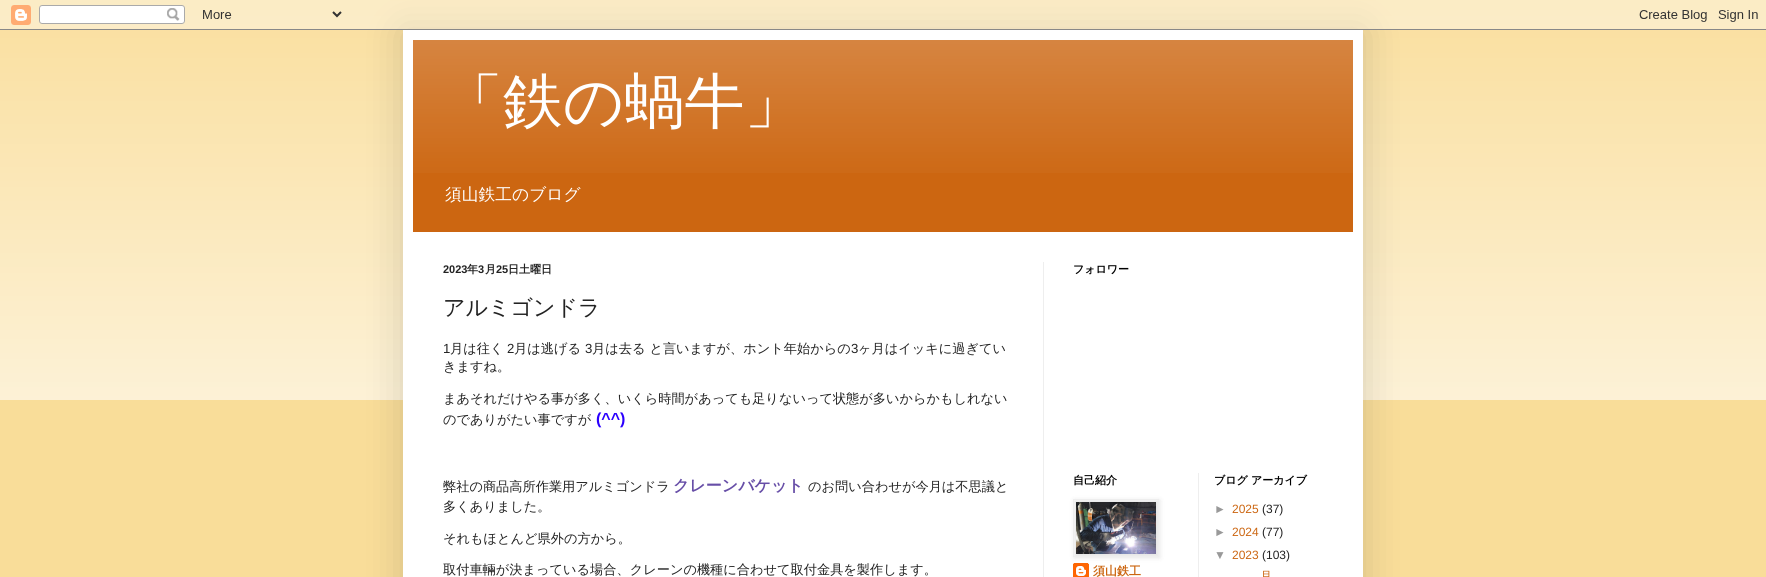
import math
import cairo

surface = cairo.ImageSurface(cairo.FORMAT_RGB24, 1766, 577)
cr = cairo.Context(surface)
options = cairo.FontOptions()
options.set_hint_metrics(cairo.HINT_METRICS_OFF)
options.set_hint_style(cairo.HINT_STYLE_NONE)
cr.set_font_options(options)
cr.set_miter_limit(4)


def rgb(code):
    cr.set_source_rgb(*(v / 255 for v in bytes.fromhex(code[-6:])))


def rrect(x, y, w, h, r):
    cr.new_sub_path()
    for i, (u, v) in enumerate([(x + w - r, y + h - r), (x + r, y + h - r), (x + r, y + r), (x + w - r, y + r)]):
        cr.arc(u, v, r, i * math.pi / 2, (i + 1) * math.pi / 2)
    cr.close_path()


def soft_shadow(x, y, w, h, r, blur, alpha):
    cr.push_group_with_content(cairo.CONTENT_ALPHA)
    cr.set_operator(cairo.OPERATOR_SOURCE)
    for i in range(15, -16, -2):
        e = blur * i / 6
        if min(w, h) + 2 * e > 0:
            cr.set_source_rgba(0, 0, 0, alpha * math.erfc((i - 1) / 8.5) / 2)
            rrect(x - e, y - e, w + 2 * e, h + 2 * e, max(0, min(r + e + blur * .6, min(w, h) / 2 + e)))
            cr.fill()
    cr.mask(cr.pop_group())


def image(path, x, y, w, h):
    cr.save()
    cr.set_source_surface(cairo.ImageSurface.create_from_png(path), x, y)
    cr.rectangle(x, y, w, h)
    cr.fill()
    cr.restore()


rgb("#f9dd99")
cr.paint()
image("img/1.png", 0, 0, 1766, 400)
rgb("#000000")
soft_shadow(403, 30, 960, 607, 0, 20, 0.15)
image("img/2.png", 0, 0, 1766, 30)
rgb("#ffffff")
cr.rectangle(403, 30, 960, 547)
cr.fill()
rgb("#cc6611")
cr.rectangle(413, 40, 940, 192)
cr.fill()
image("img/3.png", 413, 40, 940, 133)
rgb("#eeeeee")
cr.rectangle(1043, 262, 1, 315)
cr.fill()
image("img/5.png", 1073, 563, 16, 14)
rgb("#000000")
soft_shadow(1074, 500, 86, 58, 0, 2.5, 0.1)
cr.rectangle(1073.5, 499.5, 85, 57)
rgb("#eeeeee")
cr.set_line_width(1)
cr.stroke()
image("img/4.png", 1076, 502, 80, 52)
cr.rectangle(1198, 473, 1, 104)
cr.fill()
cr.select_font_face("WenQuanYi Zen Hei Medium")
cr.set_font_size(60)
rgb("#ffffff")
cr.move_to(443, 122)
cr.show_text("「鉄の蝸牛」")
cr.set_font_size(16.75)
cr.move_to(445, 200)
cr.show_text("須山鉄工のブログ")
cr.select_font_face("Liberation Sans", cairo.FONT_SLANT_NORMAL, cairo.FONT_WEIGHT_BOLD)
cr.set_font_size(11)
rgb("#222222")
cr.move_to(443, 273)
cr.show_text("2023")
cr.select_font_face("WenQuanYi Zen Hei", cairo.FONT_SLANT_NORMAL, cairo.FONT_WEIGHT_BOLD)
cr.move_to(467, 273)
cr.show_text("年")
cr.select_font_face("Liberation Sans", cairo.FONT_SLANT_NORMAL, cairo.FONT_WEIGHT_BOLD)
cr.move_to(478, 273)
cr.show_text("3")
cr.select_font_face("WenQuanYi Zen Hei", cairo.FONT_SLANT_NORMAL, cairo.FONT_WEIGHT_BOLD)
cr.move_to(485, 273)
cr.show_text("月")
cr.select_font_face("Liberation Sans", cairo.FONT_SLANT_NORMAL, cairo.FONT_WEIGHT_BOLD)
cr.move_to(496, 273)
cr.show_text("25")
cr.select_font_face("WenQuanYi Zen Hei", cairo.FONT_SLANT_NORMAL, cairo.FONT_WEIGHT_BOLD)
cr.move_to(508, 273)
cr.show_text("日土曜日")
cr.select_font_face("WenQuanYi Zen Hei Medium")
cr.set_font_size(22)
cr.move_to(443, 315)
cr.show_text("アルミゴンドラ")
cr.select_font_face("Liberation Sans")
cr.set_font_size(13.2)
cr.move_to(443, 353)
cr.show_text("1")
cr.select_font_face("WenQuanYi Zen Hei Medium")
cr.move_to(450, 353)
cr.show_text("月は往く")
cr.select_font_face("Liberation Sans")
cr.move_to(507, 353)
cr.show_text("2")
cr.select_font_face("WenQuanYi Zen Hei Medium")
cr.move_to(514, 353)
cr.show_text("月は逃げる")
cr.select_font_face("Liberation Sans")
cr.move_to(585, 353)
cr.show_text("3")
cr.select_font_face("WenQuanYi Zen Hei Medium")
cr.move_to(592, 353)
cr.show_text("月は去る と言いますが、ホント年始からの")
cr.select_font_face("Liberation Sans")
cr.move_to(851, 353)
cr.show_text("3")
cr.select_font_face("WenQuanYi Zen Hei Medium")
for x, y, s in [
    (858, 353, "ヶ月はイッキに過ぎてい"),
    (443, 371, "きますね。"),
    (443, 403, "まあそれだけやる事が多く、いくら時間があっても足りないって状態が多いからかもしれない"),
]:
    cr.move_to(x, y)
    cr.show_text(s)
cr.select_font_face("Liberation Sans", cairo.FONT_SLANT_NORMAL, cairo.FONT_WEIGHT_BOLD)
cr.set_font_size(16)
rgb("#2b00fe")
cr.move_to(596, 424)
cr.show_text("(^^)")
cr.select_font_face("WenQuanYi Zen Hei Medium")
cr.set_font_size(13.2)
rgb("#222222")
cr.move_to(443, 424)
cr.show_text("のでありがたい事ですが")
rgb("#ffffff")
cr.rectangle(591, 412, 1, 4)
cr.fill()
rgb("#222222")
cr.move_to(443, 491)
cr.show_text("弊社の商品高所作業用アルミゴンドラ")
cr.select_font_face("WenQuanYi Zen Hei", cairo.FONT_SLANT_NORMAL, cairo.FONT_WEIGHT_BOLD)
cr.set_font_size(16)
rgb("#674ea7")
cr.move_to(673, 491)
cr.show_text("クレーンバケット")
cr.select_font_face("WenQuanYi Zen Hei Medium")
cr.set_font_size(13.2)
rgb("#222222")
for x, y, s in [
    (808, 491, "のお問い合わせが今月は不思議と"),
    (443, 511, "多くありました。"),
    (443, 543, "それもほとんど県外の方から。"),
    (443, 574, "取付車輛が決まっている場合、クレーンの機種に合わせて取付金具を製作します。"),
]:
    cr.move_to(x, y)
    cr.show_text(s)
cr.select_font_face("WenQuanYi Zen Hei", cairo.FONT_SLANT_NORMAL, cairo.FONT_WEIGHT_BOLD)
cr.set_font_size(11)
rgb("#000000")
cr.move_to(1073, 273)
cr.show_text("フォロワー")
cr.move_to(1073, 484)
cr.show_text("自己紹介")
cr.set_font_size(12)
rgb("#cc6611")
cr.move_to(1093, 575)
cr.show_text("須山鉄工")
cr.set_font_size(11)
rgb("#000000")
cr.move_to(1214, 484)
cr.show_text("ブログ アーカイブ")
cr.select_font_face("Liberation Sans")
cr.set_font_size(12)
rgb("#999999")
cr.move_to(1214, 513)
cr.show_text("►")
rgb("#cc6611")
cr.move_to(1232, 513)
cr.show_text("2025")
rgb("#222222")
cr.move_to(1262, 513)
cr.show_text("(37)")
rgb("#999999")
cr.move_to(1214, 536)
cr.show_text("►")
rgb("#cc6611")
cr.move_to(1232, 536)
cr.show_text("2024")
rgb("#222222")
cr.move_to(1262, 536)
cr.show_text("(77)")
rgb("#999999")
cr.move_to(1214, 559)
cr.show_text("▼")
rgb("#cc6611")
cr.move_to(1232, 559)
cr.show_text("2023")
rgb("#222222")
cr.move_to(1262, 559)
cr.show_text("(103)")
cr.select_font_face("WenQuanYi Zen Hei Medium")
rgb("#cc6611")
cr.move_to(1260, 580)
cr.show_text("月")
surface.write_to_png("page.png")
